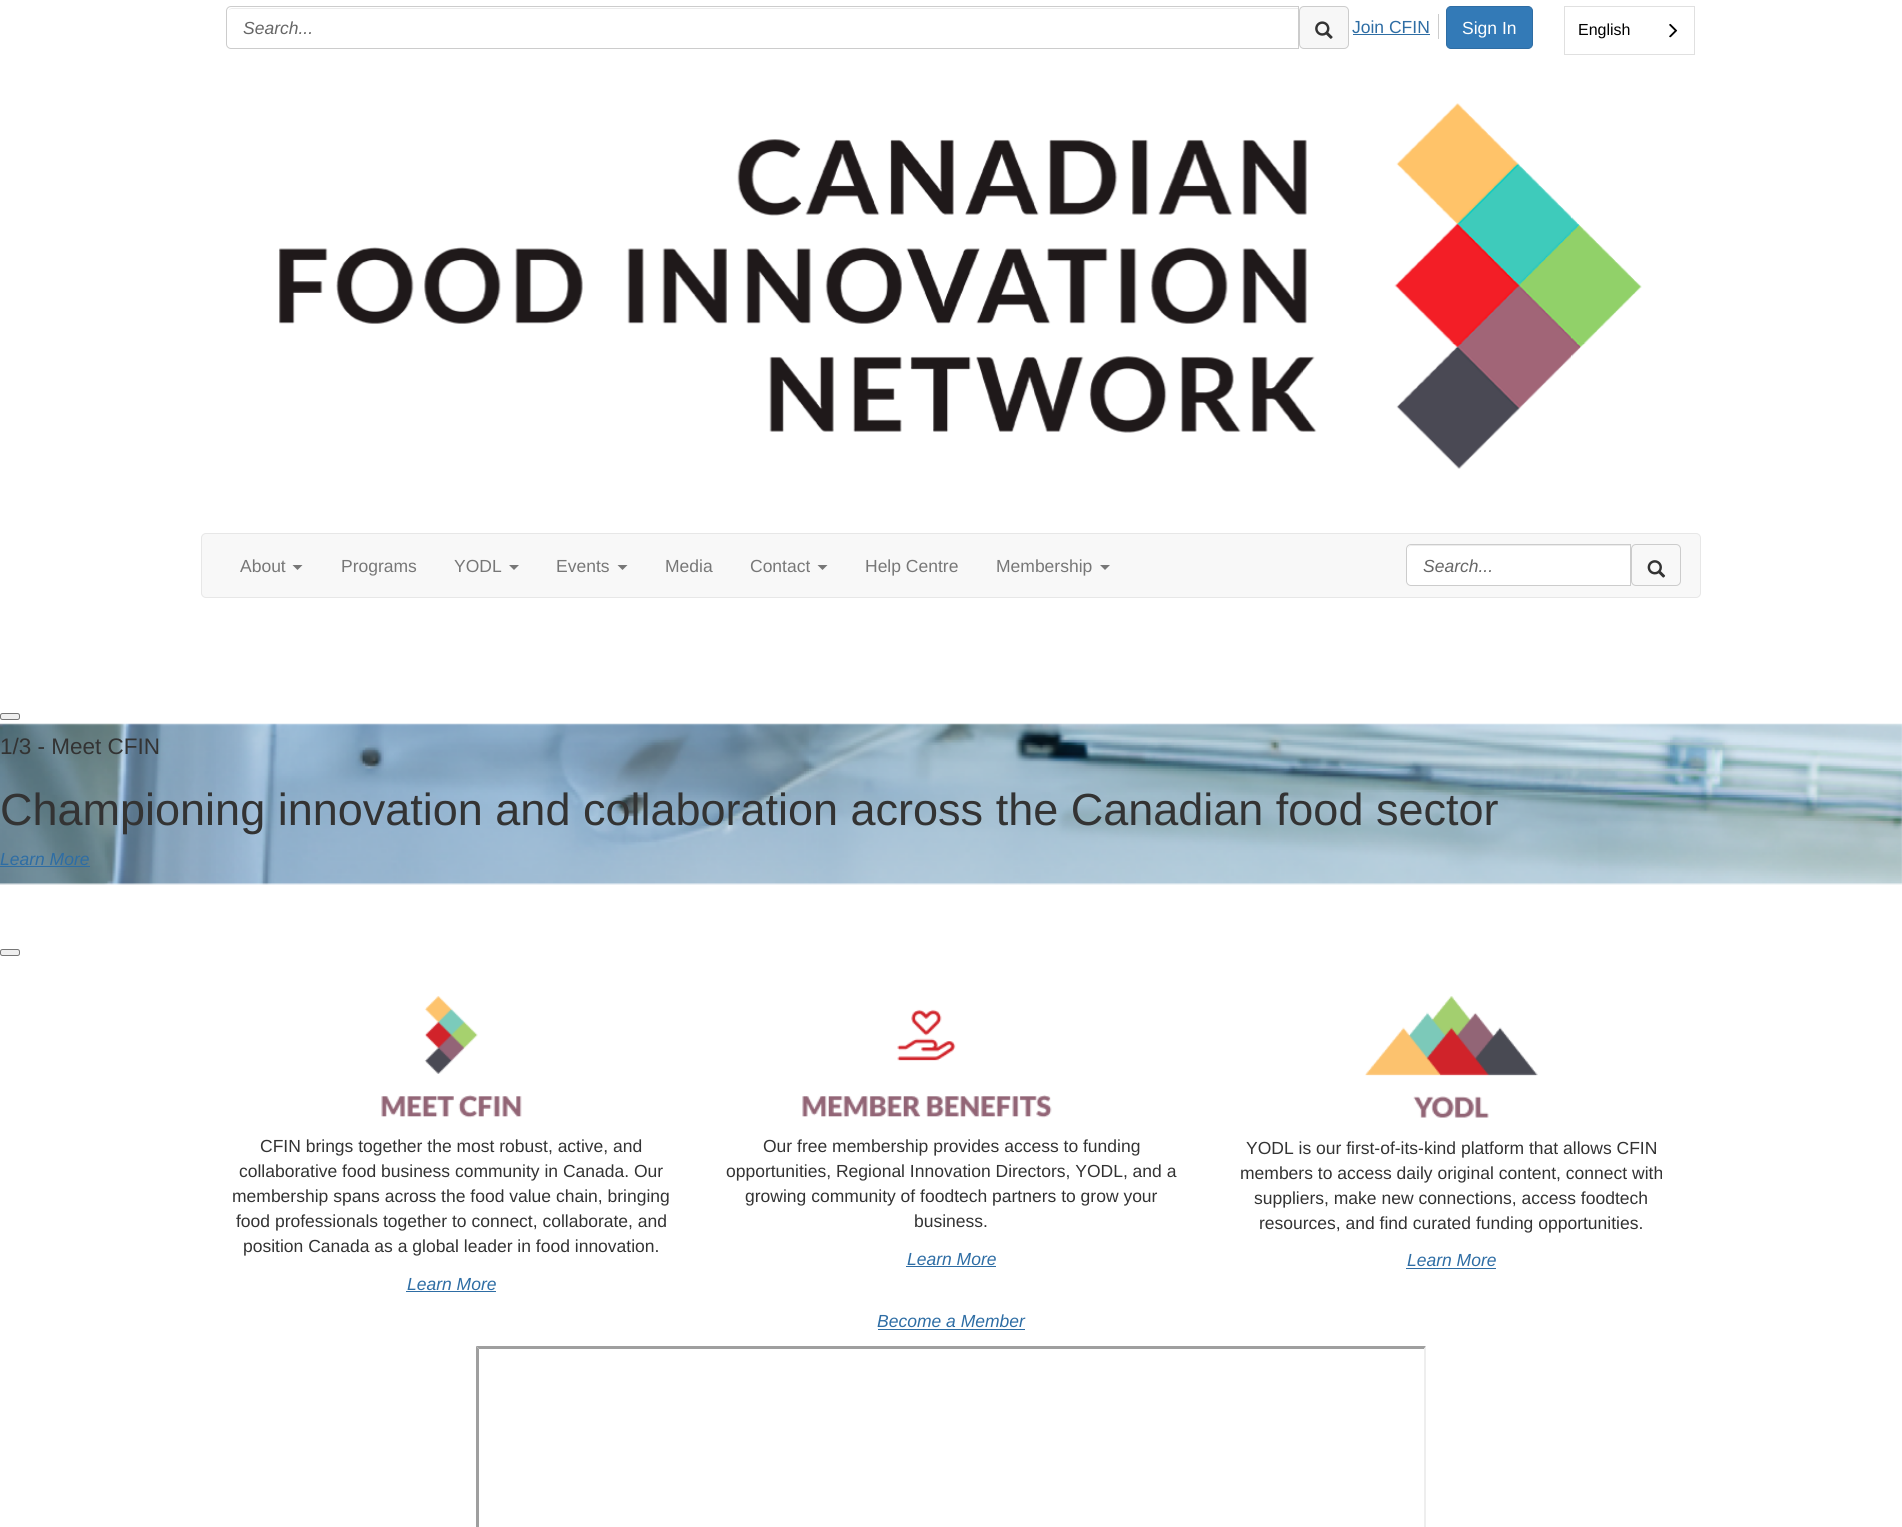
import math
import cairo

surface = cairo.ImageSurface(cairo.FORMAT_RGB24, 1902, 1527)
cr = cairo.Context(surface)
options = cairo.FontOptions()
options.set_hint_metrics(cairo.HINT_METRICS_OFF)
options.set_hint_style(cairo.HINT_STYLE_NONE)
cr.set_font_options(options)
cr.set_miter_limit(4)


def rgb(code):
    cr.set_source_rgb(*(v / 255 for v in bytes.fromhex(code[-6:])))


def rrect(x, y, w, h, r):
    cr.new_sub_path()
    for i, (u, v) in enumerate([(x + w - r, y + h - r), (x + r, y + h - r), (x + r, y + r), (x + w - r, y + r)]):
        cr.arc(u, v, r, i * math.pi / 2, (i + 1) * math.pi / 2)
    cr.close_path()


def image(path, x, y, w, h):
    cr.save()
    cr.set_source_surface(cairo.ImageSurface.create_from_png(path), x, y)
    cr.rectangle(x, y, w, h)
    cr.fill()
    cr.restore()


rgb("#ffffff")
cr.paint()
rgb("#ececec")
cr.new_path()
cr.move_to(231, 9)
cr.line_to(1298, 9)
cr.line_to(1298, 8)
cr.line_to(232, 8)
cr.curve_to(231, 8, 229, 9, 229, 10)
cr.close_path()
cr.fill()
cr.new_path()
cr.move_to(231, 6.5)
cr.line_to(1298.5, 6.5)
cr.line_to(1298.5, 48.5)
cr.line_to(231, 48.5)
cr.curve_to(228.5, 48.5, 226.5, 46.5, 226.5, 44)
cr.line_to(226.5, 11)
cr.curve_to(226.5, 8.5, 228.5, 6.5, 231, 6.5)
cr.close_path()
rgb("#cccccc")
cr.set_line_width(1)
cr.stroke()
rgb("#f7f7f7")
rrect(1299.5, 6.5, 49, 42, 4.5)
cr.fill_preserve()
rgb("#cccccc")
cr.stroke()
image("img/1.png", 1315, 21, 18, 18)
cr.rectangle(1438, 14, 1, 25)
cr.fill()
rgb("#2e6da4")
cr.rectangle(1353, 34, 77, 1)
cr.fill()
rgb("#337ab7")
rrect(1446.5, 6.5, 86, 42, 4.5)
cr.fill_preserve()
rgb("#2e6da4")
cr.stroke()
cr.rectangle(1564.5, 6.5, 130, 48)
rgb("#e0e0e0")
cr.stroke()
image("img/2.png", 1669, 23, 9, 15)
image("img/3.png", 279, 103, 1363, 366)
rgb("#f8f8f8")
rrect(201.5, 533.5, 1499, 64, 4.5)
cr.fill_preserve()
rgb("#e7e7e7")
cr.stroke()
rgb("#777777")
cr.new_path()
cr.move_to(292.5, 565)
cr.line_to(302.5, 565)
cr.line_to(297.5, 570)
cr.close_path()
cr.fill()
cr.new_path()
cr.move_to(509, 565)
cr.line_to(519, 565)
cr.line_to(514, 570)
cr.close_path()
cr.fill()
cr.new_path()
cr.move_to(617.5, 565)
cr.line_to(627.5, 565)
cr.line_to(622.5, 570)
cr.close_path()
cr.fill()
cr.new_path()
cr.move_to(817.5, 565)
cr.line_to(827.5, 565)
cr.line_to(822.5, 570)
cr.close_path()
cr.fill()
cr.new_path()
cr.move_to(1100, 565)
cr.line_to(1110, 565)
cr.line_to(1105, 570)
cr.close_path()
cr.fill()
rgb("#ffffff")
cr.new_path()
cr.move_to(1411, 544)
cr.line_to(1631, 544)
cr.line_to(1631, 586)
cr.line_to(1411, 586)
cr.curve_to(1408, 586, 1406, 584, 1406, 581)
cr.line_to(1406, 549)
cr.curve_to(1406, 546, 1408, 544, 1411, 544)
cr.close_path()
cr.fill()
rgb("#ececec")
cr.new_path()
cr.move_to(1411, 546)
cr.line_to(1630, 546)
cr.line_to(1630, 545)
cr.line_to(1412, 545)
cr.curve_to(1409, 545, 1408, 547, 1408, 550)
cr.curve_to(1408, 548, 1409, 546, 1411, 546)
cr.close_path()
cr.fill()
cr.new_path()
cr.move_to(1411, 544.5)
cr.line_to(1630.5, 544.5)
cr.line_to(1630.5, 585.5)
cr.line_to(1411, 585.5)
cr.curve_to(1408.5, 585.5, 1406.5, 583.5, 1406.5, 581)
cr.line_to(1406.5, 549)
cr.curve_to(1406.5, 546.5, 1408.5, 544.5, 1411, 544.5)
cr.close_path()
rgb("#cccccc")
cr.stroke()
rrect(1631.5, 544.5, 49, 41, 4.5)
cr.stroke()
image("img/4.png", 1647, 560, 19, 18)
rgb("#efefef")
rrect(0.5, 713.5, 19, 6, 2)
cr.fill_preserve()
rgb("#767676")
cr.stroke()
image("img/5.png", 0, 723, 1902, 162)
rgb("#2e6da4")
cr.rectangle(0, 866, 90, 1)
cr.fill()
rgb("#efefef")
rrect(0.5, 949.5, 19, 6, 2)
cr.fill_preserve()
rgb("#767676")
cr.stroke()
image("img/6.png", 381, 996, 141, 122)
rgb("#2e6da4")
cr.rectangle(406, 1291, 90, 1)
cr.fill()
image("img/7.png", 802, 1009, 250, 109)
cr.rectangle(906, 1266, 90, 1)
cr.fill()
image("img/8.png", 1365, 996, 173, 122)
cr.rectangle(1406, 1268, 90, 1)
cr.fill()
cr.rectangle(878, 1329, 147, 1)
cr.fill()
rgb("#9f9f9f")
cr.new_path()
cr.move_to(476, 1346)
cr.line_to(1426, 1346)
cr.line_to(1424, 1349)
cr.line_to(479, 1349)
cr.close_path()
cr.fill()
rgb("#eeeeee")
cr.new_path()
cr.move_to(1426, 1346)
cr.line_to(1426, 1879)
cr.line_to(1424, 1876)
cr.line_to(1424, 1349)
cr.close_path()
cr.fill()
rgb("#9f9f9f")
cr.new_path()
cr.move_to(476, 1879)
cr.line_to(476, 1346)
cr.line_to(479, 1349)
cr.line_to(479, 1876)
cr.close_path()
cr.fill()
cr.select_font_face("Liberation Sans", cairo.FONT_SLANT_ITALIC)
cr.set_font_size(17.5)
rgb("#666666")
cr.move_to(243, 34)
cr.show_text("Search...")
cr.select_font_face("Liberation Sans")
rgb("#2e6da4")
cr.move_to(1352, 33)
cr.show_text("Join CFIN")
rgb("#ffffff")
cr.move_to(1462, 34)
cr.show_text("Sign In")
cr.set_font_size(16)
rgb("#000000")
cr.move_to(1578, 35)
cr.show_text("English")
cr.set_font_size(17.5)
rgb("#777777")
for x, y, s in [
    (240, 572, "About"),
    (341, 572, "Programs"),
    (454, 572, "YODL"),
    (556, 572, "Events"),
    (665, 572, "Media"),
    (750, 572, "Contact"),
    (865, 572, "Help Centre"),
    (996, 572, "Membership"),
]:
    cr.move_to(x, y)
    cr.show_text(s)
cr.select_font_face("Liberation Sans", cairo.FONT_SLANT_ITALIC)
rgb("#666666")
cr.move_to(1423, 572)
cr.show_text("Search...")
cr.select_font_face("Liberation Sans")
cr.set_font_size(22.5)
rgb("#333333")
cr.move_to(0, 754)
cr.show_text("1/3 - Meet CFIN")
cr.set_font_size(45)
cr.move_to(0, 825)
cr.show_text("Championing innovation and collaboration across the Canadian food sector")
cr.select_font_face("Liberation Sans", cairo.FONT_SLANT_ITALIC)
cr.set_font_size(17.5)
rgb("#2e6da4")
cr.move_to(0, 865)
cr.show_text("Learn More")
cr.select_font_face("Liberation Sans")
rgb("#333333")
for x, y, s in [
    (260, 1152, "CFIN brings together the most robust, active, and"),
    (239, 1177, "collaborative food business community in Canada. Our"),
    (232, 1202, "membership spans across the food value chain, bringing"),
    (236, 1227, "food professionals together to connect, collaborate, and"),
    (243, 1252, "position Canada as a global leader in food innovation."),
]:
    cr.move_to(x, y)
    cr.show_text(s)
cr.select_font_face("Liberation Sans", cairo.FONT_SLANT_ITALIC)
rgb("#2e6da4")
cr.move_to(407, 1290)
cr.show_text("Learn More")
cr.select_font_face("Liberation Sans")
rgb("#333333")
for x, y, s in [
    (763, 1152, "Our free membership provides access to funding"),
    (726, 1177, "opportunities, Regional Innovation Directors, YODL, and a"),
    (745, 1202, "growing community of foodtech partners to grow your"),
    (914, 1227, "business."),
]:
    cr.move_to(x, y)
    cr.show_text(s)
cr.select_font_face("Liberation Sans", cairo.FONT_SLANT_ITALIC)
rgb("#2e6da4")
cr.move_to(907, 1265)
cr.show_text("Learn More")
cr.select_font_face("Liberation Sans")
rgb("#333333")
for x, y, s in [
    (1246, 1154, "YODL is our first-of-its-kind platform that allows CFIN"),
    (1240, 1179, "members to access daily original content, connect with"),
    (1254, 1204, "suppliers, make new connections, access foodtech"),
    (1259, 1229, "resources, and find curated funding opportunities."),
]:
    cr.move_to(x, y)
    cr.show_text(s)
cr.select_font_face("Liberation Sans", cairo.FONT_SLANT_ITALIC)
rgb("#2e6da4")
cr.move_to(1407, 1266)
cr.show_text("Learn More")
cr.move_to(877, 1327)
cr.show_text("Become a Member")
surface.write_to_png("page.png")
